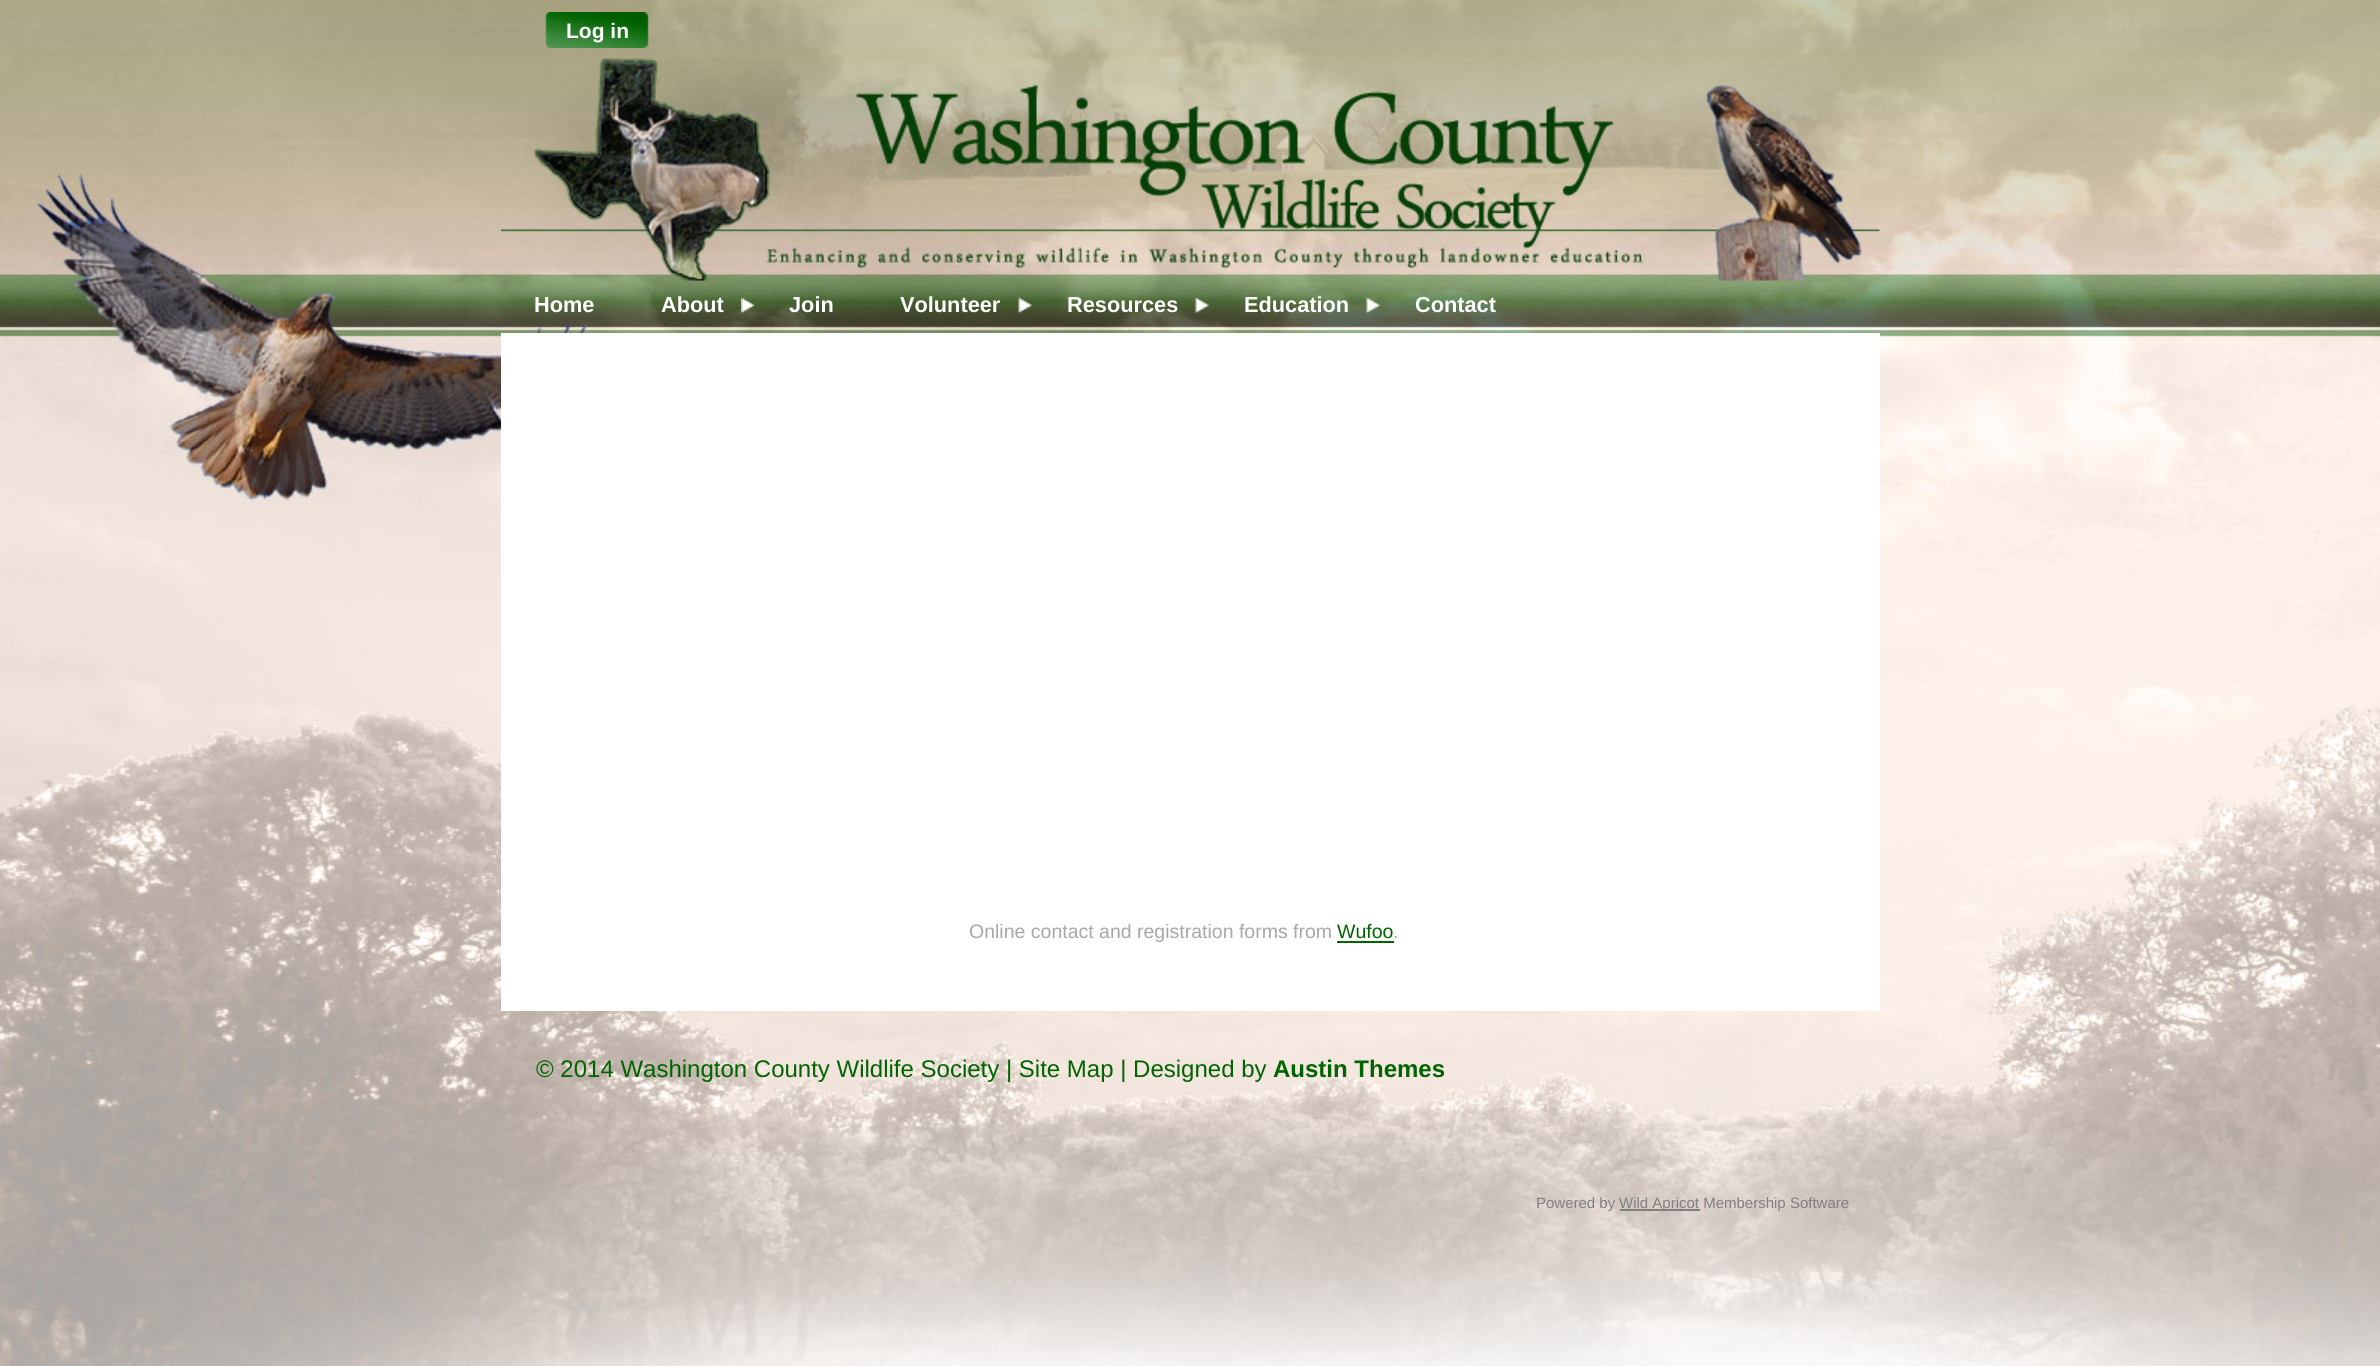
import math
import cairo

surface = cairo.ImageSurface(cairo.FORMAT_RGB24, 2380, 1366)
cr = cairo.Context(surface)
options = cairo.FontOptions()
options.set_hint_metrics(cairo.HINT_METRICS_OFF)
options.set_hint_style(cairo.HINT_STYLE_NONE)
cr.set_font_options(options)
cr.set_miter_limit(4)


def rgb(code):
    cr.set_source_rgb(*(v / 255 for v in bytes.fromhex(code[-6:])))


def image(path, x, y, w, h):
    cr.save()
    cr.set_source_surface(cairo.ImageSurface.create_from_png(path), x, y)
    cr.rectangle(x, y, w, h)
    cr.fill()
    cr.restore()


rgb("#ffffff")
cr.paint()
image("img/1.png", 0, 0, 2380, 1366)
image("img/2.png", 544, 12, 105, 36)
image("img/3.png", 501, 58, 1379, 223)
image("img/4.png", 741, 297, 14, 17)
image("img/5.png", 1018, 297, 14, 17)
image("img/6.png", 1195, 297, 14, 17)
image("img/7.png", 1366, 297, 14, 17)
for x, y, w, h, color in [
    (501, 333, 1379, 678, "#ffffff"),
    (1337, 941, 57, 2, "#006400"),
    (1620, 1209, 80, 2, "#808080"),
]:
    rgb(color)
    cr.rectangle(x, y, w, h)
    cr.fill()
cr.select_font_face("Liberation Sans", cairo.FONT_SLANT_NORMAL, cairo.FONT_WEIGHT_BOLD)
cr.set_font_size(21)
rgb("#ffffff")
cr.move_to(566, 38)
cr.show_text("Log in")
cr.set_font_size(21.75)
for x, y, s in [
    (534, 312, "Home"),
    (661, 312, "About"),
    (789, 312, "Join"),
    (900, 312, "Volunteer"),
    (1067, 312, "Resources"),
    (1244, 312, "Education"),
    (1415, 312, "Contact"),
]:
    cr.move_to(x, y)
    cr.show_text(s)
cr.select_font_face("Liberation Sans")
cr.set_font_size(19.5)
rgb("#a7a7a7")
cr.move_to(969, 938)
cr.show_text("Online contact and registration forms from")
rgb("#006400")
cr.move_to(1337, 938)
cr.show_text("Wufoo")
rgb("#a7a7a7")
cr.move_to(1393, 938)
cr.show_text(".")
cr.set_font_size(24)
rgb("#006400")
cr.move_to(536, 1077)
cr.show_text("© 2014 Washington County Wildlife Society | Site Map | Designed by")
cr.select_font_face("Liberation Sans", cairo.FONT_SLANT_NORMAL, cairo.FONT_WEIGHT_BOLD)
cr.move_to(1273, 1077)
cr.show_text("Austin Themes")
cr.select_font_face("Liberation Sans")
cr.set_font_size(15)
rgb("#808080")
cr.move_to(1536, 1208)
cr.show_text("Powered by")
cr.move_to(1619, 1208)
cr.show_text("Wild Apricot Membership Software")
surface.write_to_png("page.png")
